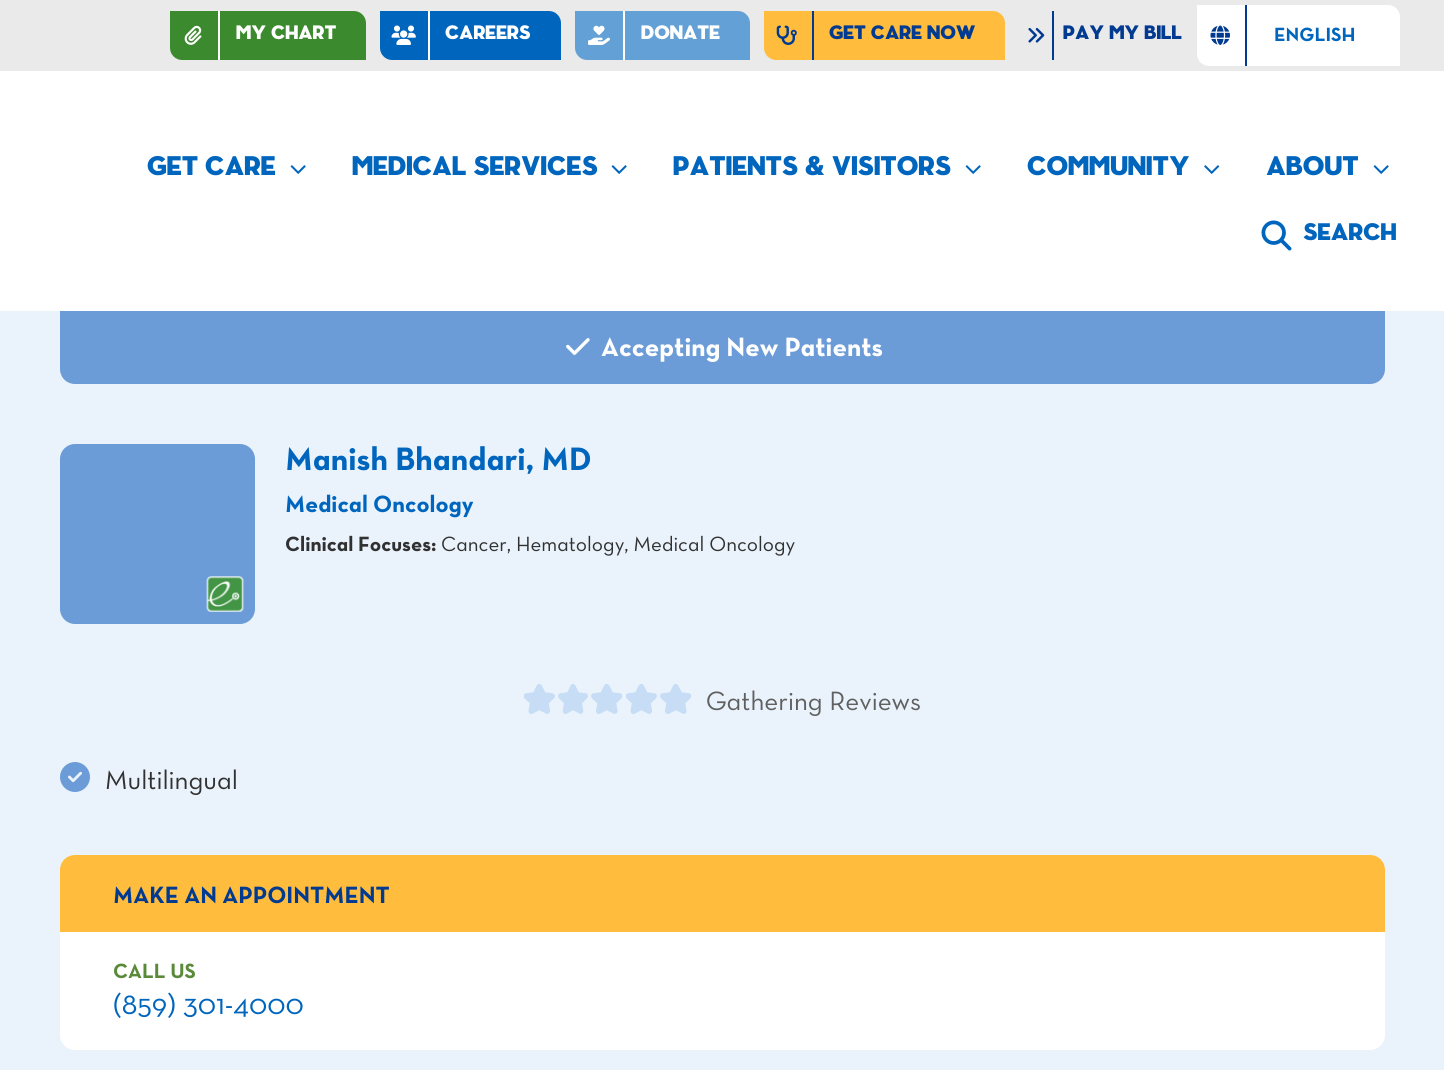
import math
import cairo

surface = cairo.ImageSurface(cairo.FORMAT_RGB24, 1444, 1070)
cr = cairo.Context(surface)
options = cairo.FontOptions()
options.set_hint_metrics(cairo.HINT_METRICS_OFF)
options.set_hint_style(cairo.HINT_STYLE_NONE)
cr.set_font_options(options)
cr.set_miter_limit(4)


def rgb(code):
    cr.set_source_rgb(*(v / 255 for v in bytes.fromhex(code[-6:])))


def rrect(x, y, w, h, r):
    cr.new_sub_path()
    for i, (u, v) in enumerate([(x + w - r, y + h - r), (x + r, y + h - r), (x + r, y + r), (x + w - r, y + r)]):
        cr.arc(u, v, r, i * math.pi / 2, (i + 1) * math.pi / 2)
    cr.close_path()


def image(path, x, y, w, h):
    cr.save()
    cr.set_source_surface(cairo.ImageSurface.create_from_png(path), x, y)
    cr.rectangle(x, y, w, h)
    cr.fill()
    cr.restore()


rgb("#ffffff")
cr.paint()
rgb("#eaeaea")
cr.rectangle(0, 0, 1444, 71)
cr.fill()
rgb("#3c8a2e")
cr.new_path()
cr.move_to(170, 11)
cr.line_to(354, 11)
cr.curve_to(360.5, 11, 366, 16.5, 366, 23)
cr.line_to(366, 60)
cr.line_to(182, 60)
cr.curve_to(175.5, 60, 170, 54.5, 170, 48)
cr.close_path()
cr.fill()
rgb("#ffffff")
cr.rectangle(218, 11, 2, 49)
cr.fill()
image("img/1.png", 184, 25, 18, 20)
rgb("#0065bd")
cr.new_path()
cr.move_to(380, 11)
cr.line_to(549, 11)
cr.curve_to(555.5, 11, 561, 16.5, 561, 23)
cr.line_to(561, 60)
cr.line_to(392, 60)
cr.curve_to(385.5, 60, 380, 54.5, 380, 48)
cr.close_path()
cr.fill()
rgb("#ffffff")
cr.rectangle(428, 11, 2, 49)
cr.fill()
image("img/2.png", 391, 25, 25, 20)
rgb("#63a0d6")
cr.new_path()
cr.move_to(575, 11)
cr.line_to(738, 11)
cr.curve_to(744.5, 11, 750, 16.5, 750, 23)
cr.line_to(750, 60)
cr.line_to(587, 60)
cr.curve_to(580.5, 60, 575, 54.5, 575, 48)
cr.close_path()
cr.fill()
rgb("#ffffff")
cr.rectangle(623, 11, 2, 49)
cr.fill()
image("img/3.png", 588, 25, 22, 20)
rgb("#ffbc3d")
cr.new_path()
cr.move_to(764, 11)
cr.line_to(993, 11)
cr.curve_to(999.5, 11, 1005, 16.5, 1005, 23)
cr.line_to(1005, 60)
cr.line_to(776, 60)
cr.curve_to(769.5, 60, 764, 54.5, 764, 48)
cr.close_path()
cr.fill()
rgb("#003a91")
cr.rectangle(812, 11, 2, 49)
cr.fill()
image("img/4.png", 776, 25, 21, 20)
cr.rectangle(1052, 11, 2, 49)
cr.fill()
image("img/5.png", 1028, 27, 17, 16)
rgb("#ffffff")
cr.new_path()
cr.move_to(1197, 5)
cr.line_to(1388, 5)
cr.curve_to(1394.5, 5, 1400, 10.5, 1400, 17)
cr.line_to(1400, 66)
cr.line_to(1209, 66)
cr.curve_to(1202.5, 66, 1197, 60.5, 1197, 54)
cr.close_path()
cr.fill()
rgb("#003a91")
cr.rectangle(1245, 5, 2, 61)
cr.fill()
image("img/6.png", 1210, 25, 20, 20)
image("img/7.png", 290, 165, 16, 9)
image("img/7.png", 611, 165, 16, 9)
image("img/7.png", 965, 165, 16, 9)
image("img/8.png", 1204, 165, 16, 9)
image("img/7.png", 1373, 165, 16, 9)
image("img/9.png", 1261, 220, 31, 31)
rgb("#eaf3fc")
cr.rectangle(0, 311, 1444, 759)
cr.fill()
rgb("#6c9cd7")
cr.new_path()
cr.move_to(60, 311)
cr.line_to(1385, 311)
cr.line_to(1385, 369)
cr.curve_to(1385, 377.5, 1378.5, 384, 1370, 384)
cr.line_to(75, 384)
cr.curve_to(66.5, 384, 60, 377.5, 60, 369)
cr.close_path()
cr.fill()
image("img/10.png", 566, 338, 24, 17)
rrect(60, 444, 195, 180, 15)
cr.fill()
image("img/11.png", 206, 576, 38, 36)
image("img/12.png", 524, 684, 31, 30)
image("img/13.png", 558, 684, 30, 30)
image("img/14.png", 591, 684, 32, 30)
image("img/12.png", 626, 684, 31, 30)
image("img/14.png", 660, 684, 32, 30)
image("img/15.png", 60, 762, 30, 30)
rgb("#ffffff")
rrect(60, 855, 1325, 195, 15)
cr.fill()
rgb("#ffbc3d")
cr.new_path()
cr.move_to(75, 855)
cr.line_to(1370, 855)
cr.curve_to(1378.5, 855, 1385, 861.5, 1385, 870)
cr.line_to(1385, 932)
cr.line_to(60, 932)
cr.line_to(60, 870)
cr.curve_to(60, 861.5, 66.5, 855, 75, 855)
cr.close_path()
cr.fill()
cr.select_font_face("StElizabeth")
cr.set_font_size(19.5)
rgb("#ffffff")
for x, y, s in [
    (236, 39, "MY CHART"),
    (445, 39, "CAREERS"),
    (641, 39, "DONATE"),
]:
    cr.move_to(x, y)
    cr.show_text(s)
rgb("#003a91")
cr.move_to(829, 39)
cr.show_text("GET CARE NOW")
cr.move_to(1063, 39)
cr.show_text("PAY MY BILL")
cr.select_font_face("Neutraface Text", cairo.FONT_SLANT_NORMAL, cairo.FONT_WEIGHT_BOLD)
rgb("#0065bd")
cr.move_to(1274, 41)
cr.show_text("ENGLISH")
cr.select_font_face("StElizabeth")
cr.set_font_size(27)
for x, y, s in [
    (147, 175, "Get Care"),
    (352, 175, "Medical Services"),
    (673, 175, "Patients & Visitors"),
    (1027, 175, "Community"),
    (1266, 175, "About"),
]:
    cr.move_to(x, y)
    cr.show_text(s)
cr.set_font_size(24)
cr.move_to(1303, 240)
cr.show_text("SEARCH")
cr.select_font_face("Neutraface Text", cairo.FONT_SLANT_NORMAL, cairo.FONT_WEIGHT_BOLD)
cr.set_font_size(27)
rgb("#ffffff")
cr.move_to(601, 356)
cr.show_text("Accepting New Patients")
cr.set_font_size(33)
rgb("#0065bd")
cr.move_to(285, 470)
cr.show_text("Manish Bhandari, MD")
cr.set_font_size(24)
cr.move_to(285, 512)
cr.show_text("Medical Oncology")
cr.set_font_size(21)
rgb("#313131")
cr.move_to(285, 551)
cr.show_text("Clinical Focuses:")
cr.select_font_face("Neutraface Text")
cr.move_to(441, 551)
cr.show_text("Cancer, Hematology, Medical Oncology")
cr.set_font_size(27)
rgb("#606060")
cr.move_to(706, 710)
cr.show_text("Gathering Reviews")
rgb("#313131")
cr.move_to(105, 789)
cr.show_text("Multilingual")
cr.select_font_face("Neutraface Text", cairo.FONT_SLANT_NORMAL, cairo.FONT_WEIGHT_BOLD)
cr.set_font_size(24)
rgb("#003a91")
cr.move_to(113, 903)
cr.show_text("MAKE AN APPOINTMENT")
cr.set_font_size(21)
rgb("#598939")
cr.move_to(113, 978)
cr.show_text("CALL US")
cr.select_font_face("Neutraface Text")
cr.set_font_size(30)
rgb("#0065bd")
cr.move_to(113, 1014)
cr.show_text("(859) 301-4000")
surface.write_to_png("page.png")
